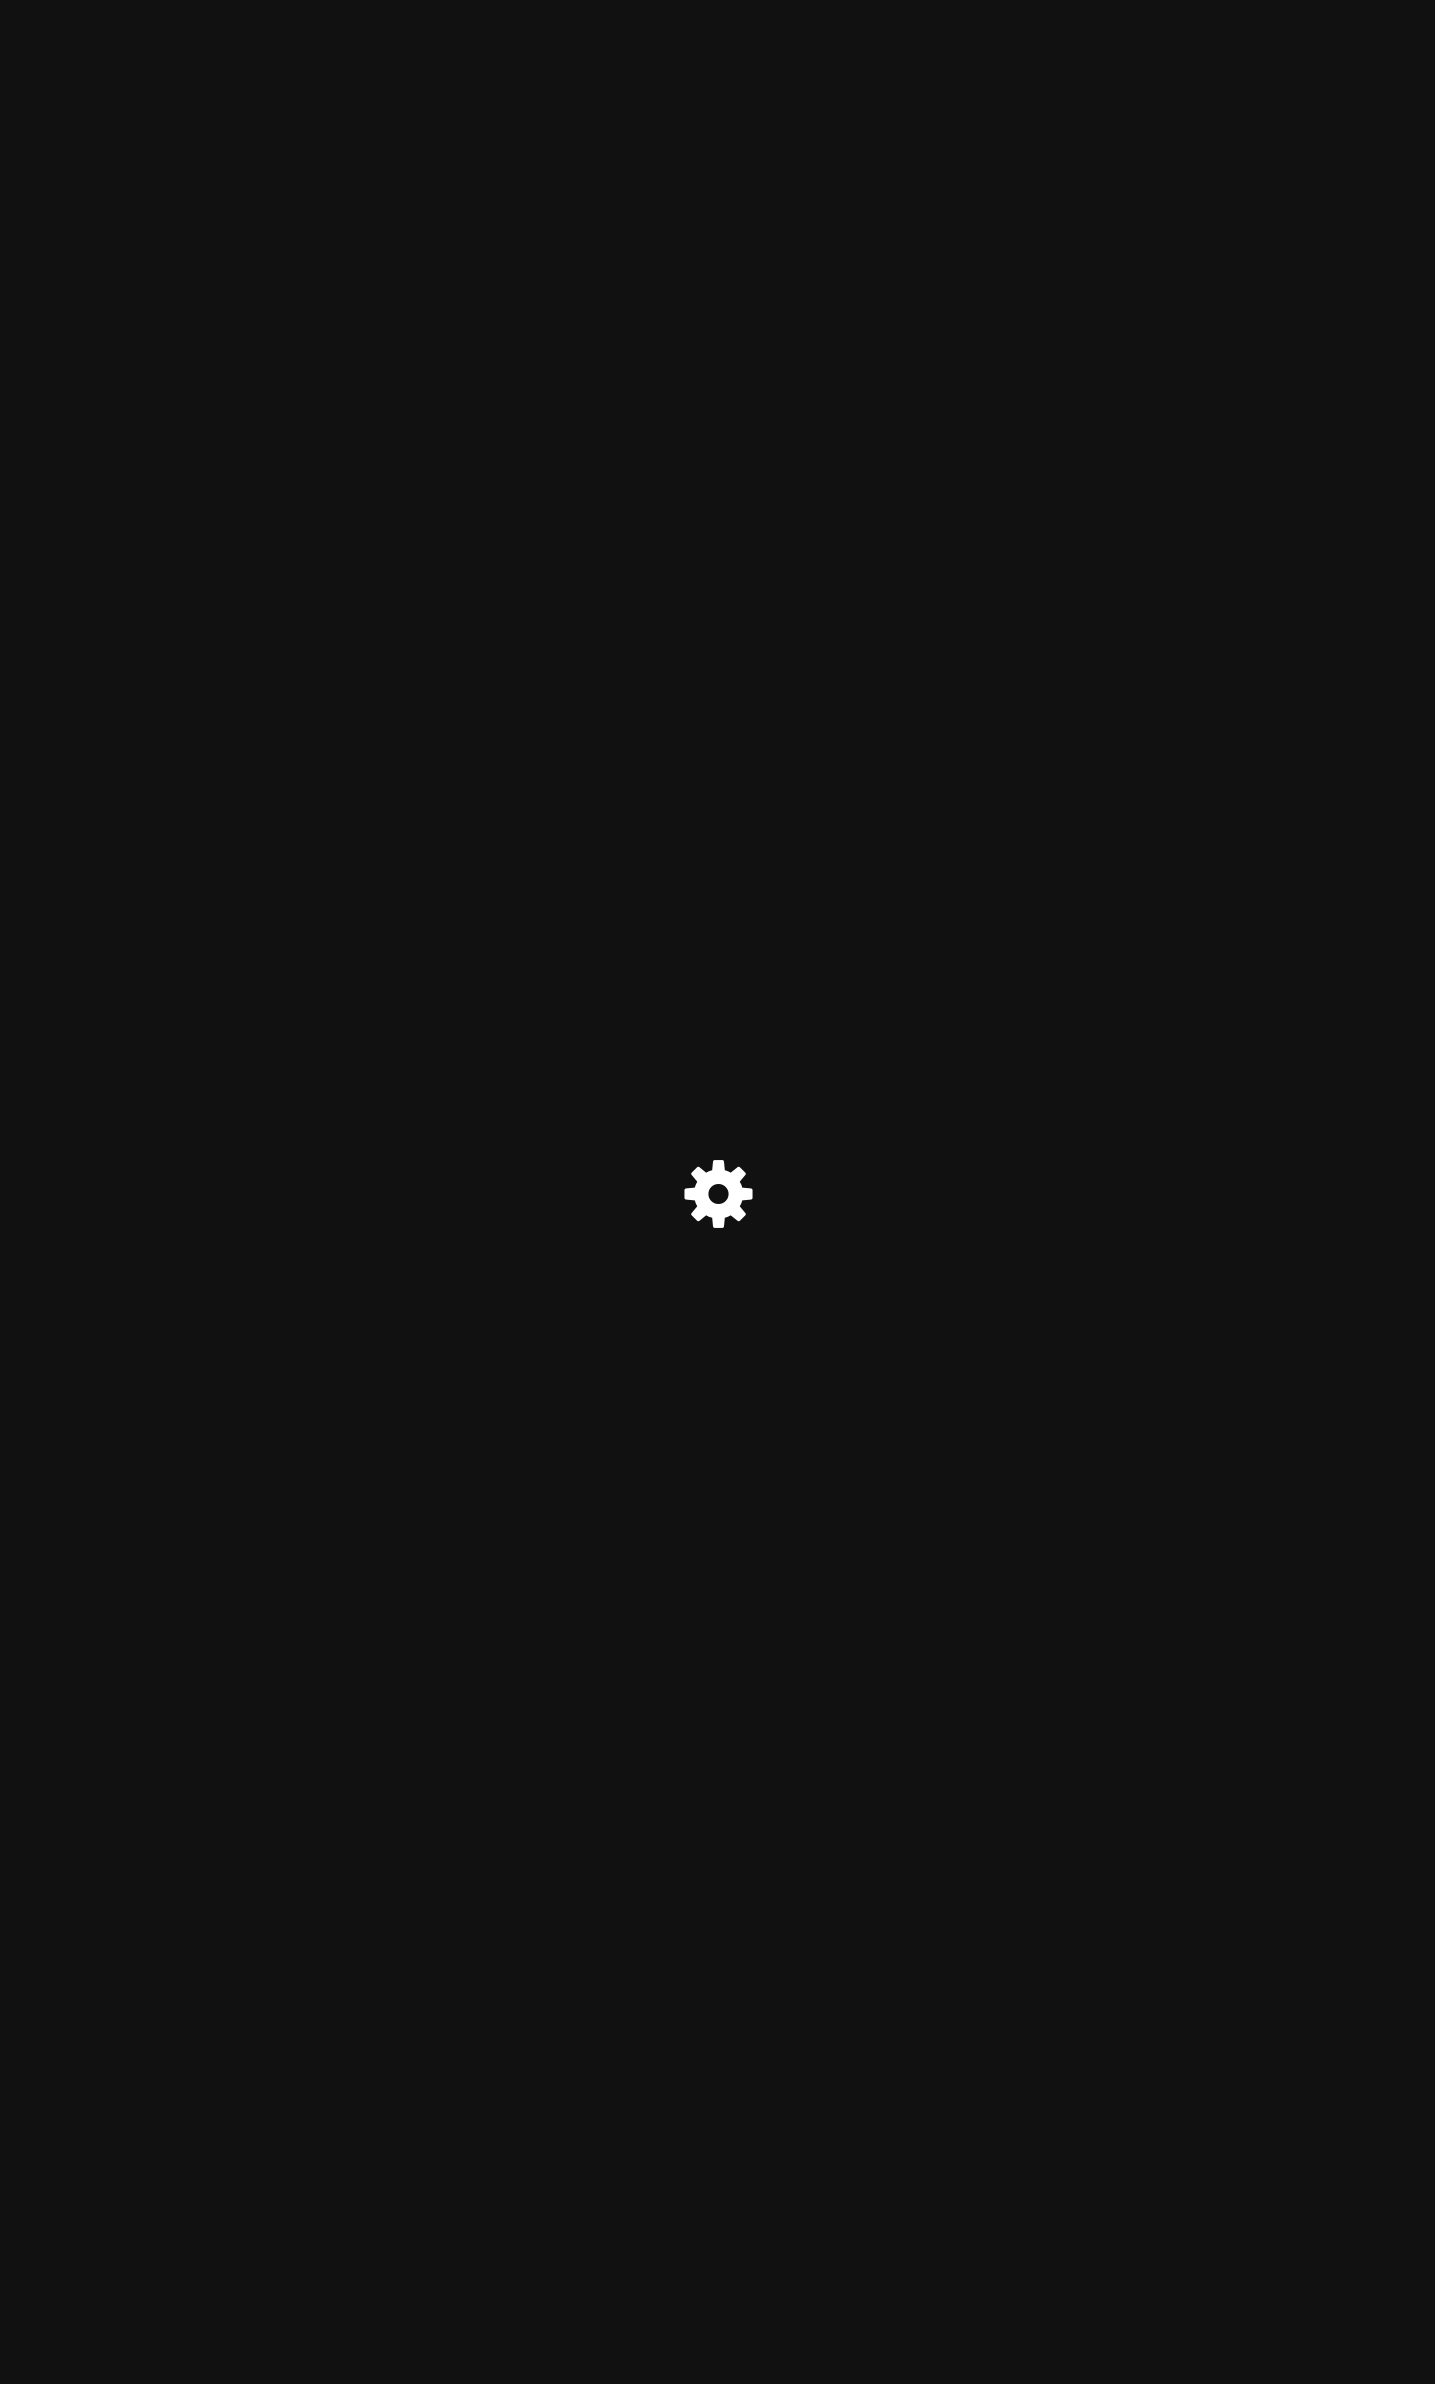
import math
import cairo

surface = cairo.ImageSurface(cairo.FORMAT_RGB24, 1435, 2384)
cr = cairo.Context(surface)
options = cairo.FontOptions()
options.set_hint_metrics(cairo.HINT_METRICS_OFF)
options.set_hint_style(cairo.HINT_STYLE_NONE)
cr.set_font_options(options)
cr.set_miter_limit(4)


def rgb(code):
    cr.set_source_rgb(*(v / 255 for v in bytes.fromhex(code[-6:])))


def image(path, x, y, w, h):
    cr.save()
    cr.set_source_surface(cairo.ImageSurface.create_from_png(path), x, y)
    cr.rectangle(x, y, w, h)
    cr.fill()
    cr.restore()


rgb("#111111")
cr.paint()
image("img/1.png", 684, 1160, 69, 68)
surface.write_to_png("page.png")
